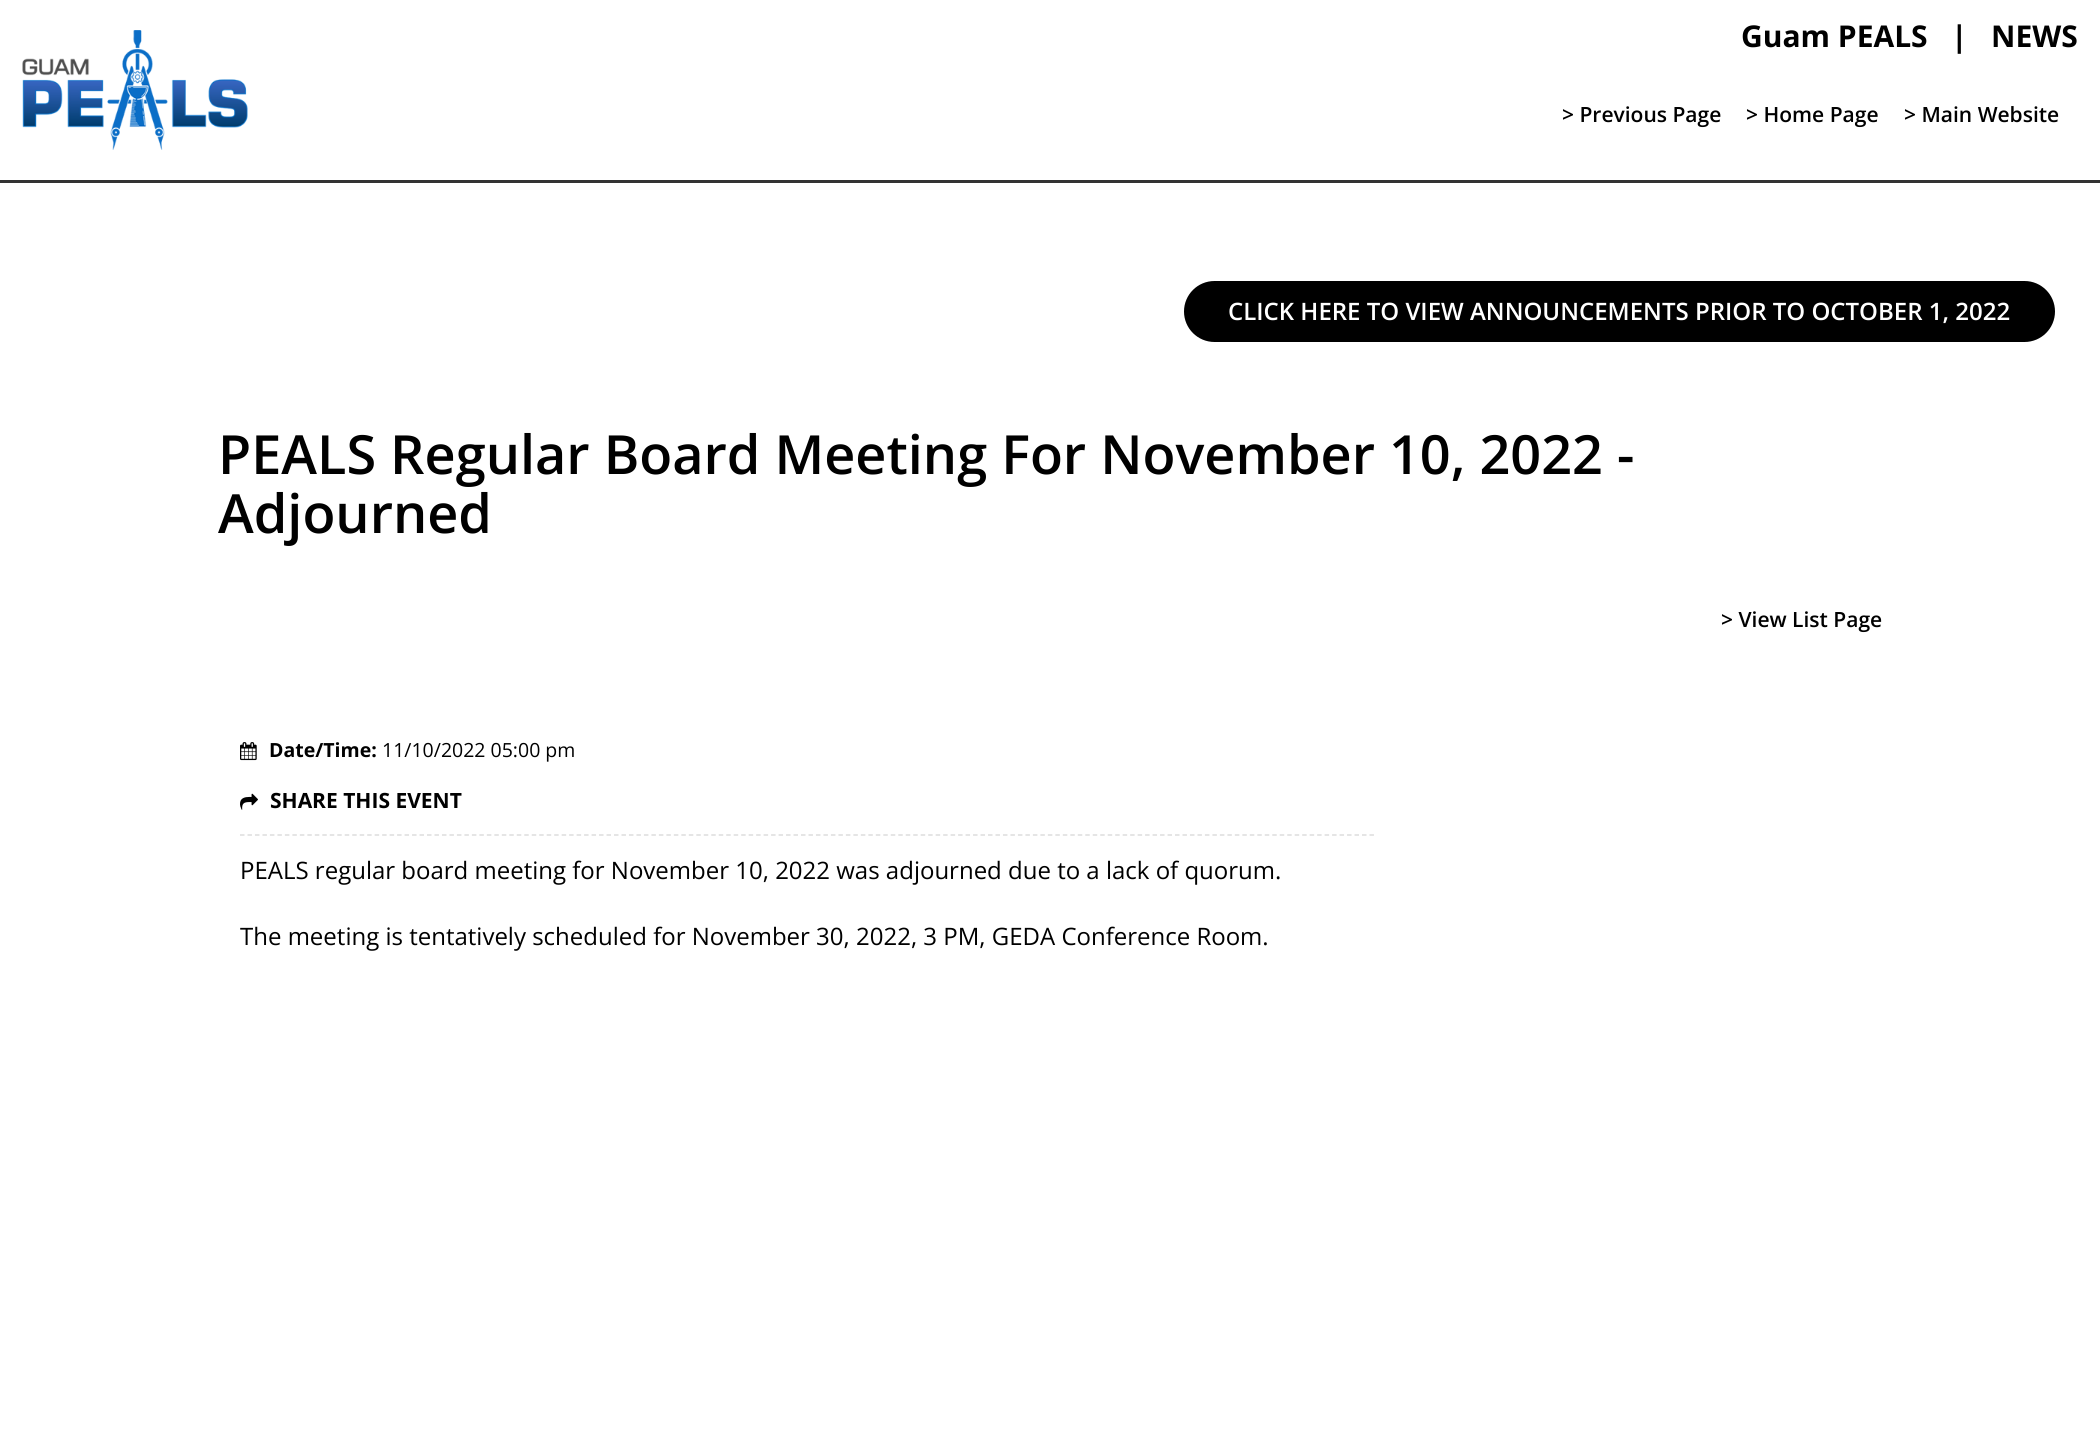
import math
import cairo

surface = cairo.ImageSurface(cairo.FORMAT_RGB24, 2100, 1438)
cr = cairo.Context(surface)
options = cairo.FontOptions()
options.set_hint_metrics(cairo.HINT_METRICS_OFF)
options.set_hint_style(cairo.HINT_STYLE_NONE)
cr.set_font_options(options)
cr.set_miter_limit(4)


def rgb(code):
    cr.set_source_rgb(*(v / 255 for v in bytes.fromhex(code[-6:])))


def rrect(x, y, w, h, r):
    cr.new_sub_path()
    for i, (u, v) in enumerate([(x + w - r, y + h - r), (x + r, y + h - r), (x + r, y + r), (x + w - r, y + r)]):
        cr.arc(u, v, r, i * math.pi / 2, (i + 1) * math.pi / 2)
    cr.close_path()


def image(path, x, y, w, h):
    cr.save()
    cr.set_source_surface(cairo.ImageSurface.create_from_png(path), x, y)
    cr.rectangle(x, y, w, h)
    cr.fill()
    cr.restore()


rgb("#ffffff")
cr.paint()
rgb("#333333")
cr.rectangle(0, 180, 2100, 3)
cr.fill()
image("img/1.png", 22, 30, 226, 120)
rgb("#000000")
rrect(1184, 281, 871, 61, 30.5)
cr.fill()
cr.new_path()
cr.move_to(240, 835)
cr.line_to(1374, 835)
rgb("#dddddd")
cr.set_line_width(1.5)
cr.set_dash([4.5, 2.98])
cr.stroke()
image("img/2.png", 240, 742, 17, 19)
image("img/3.png", 240, 793, 18, 17)
cr.select_font_face("Open Sans", cairo.FONT_SLANT_NORMAL, cairo.FONT_WEIGHT_BOLD)
cr.set_font_size(30)
rgb("#000000")
for x, y, s in [
    (1741, 47, "Guam PEALS"),
    (1951, 47, "|"),
    (1991, 47, "NEWS"),
]:
    cr.move_to(x, y)
    cr.show_text(s)
cr.select_font_face("Open Sans SemiBold")
cr.set_font_size(21)
for x, y, s in [
    (1562, 122, "> Previous Page"),
    (1746, 122, "> Home Page"),
    (1904, 122, "> Main Website"),
]:
    cr.move_to(x, y)
    cr.show_text(s)
cr.set_font_size(24)
rgb("#ffffff")
cr.move_to(1228, 320)
cr.show_text("CLICK HERE TO VIEW ANNOUNCEMENTS PRIOR TO OCTOBER 1, 2022")
cr.set_font_size(54)
rgb("#000000")
cr.move_to(218, 474)
cr.show_text("PEALS Regular Board Meeting For November 10, 2022 -")
cr.move_to(218, 533)
cr.show_text("Adjourned")
cr.set_font_size(21)
cr.move_to(1721, 627)
cr.show_text("> View List Page")
cr.select_font_face("Open Sans", cairo.FONT_SLANT_NORMAL, cairo.FONT_WEIGHT_BOLD)
cr.set_font_size(19.5)
cr.move_to(269, 757)
cr.show_text("Date/Time:")
cr.select_font_face("Open Sans")
cr.move_to(382, 757)
cr.show_text("11/10/2022 05:00 pm")
cr.select_font_face("Open Sans", cairo.FONT_SLANT_NORMAL, cairo.FONT_WEIGHT_BOLD)
cr.set_font_size(21)
cr.move_to(270, 808)
cr.show_text("SHARE THIS EVENT")
cr.select_font_face("Open Sans")
cr.set_font_size(24)
cr.move_to(240, 879)
cr.show_text("PEALS regular board meeting for November 10, 2022 was adjourned due to a lack of quorum.")
cr.move_to(240, 945)
cr.show_text("The meeting is tentatively scheduled for November 30, 2022, 3 PM, GEDA Conference Room.")
surface.write_to_png("page.png")
